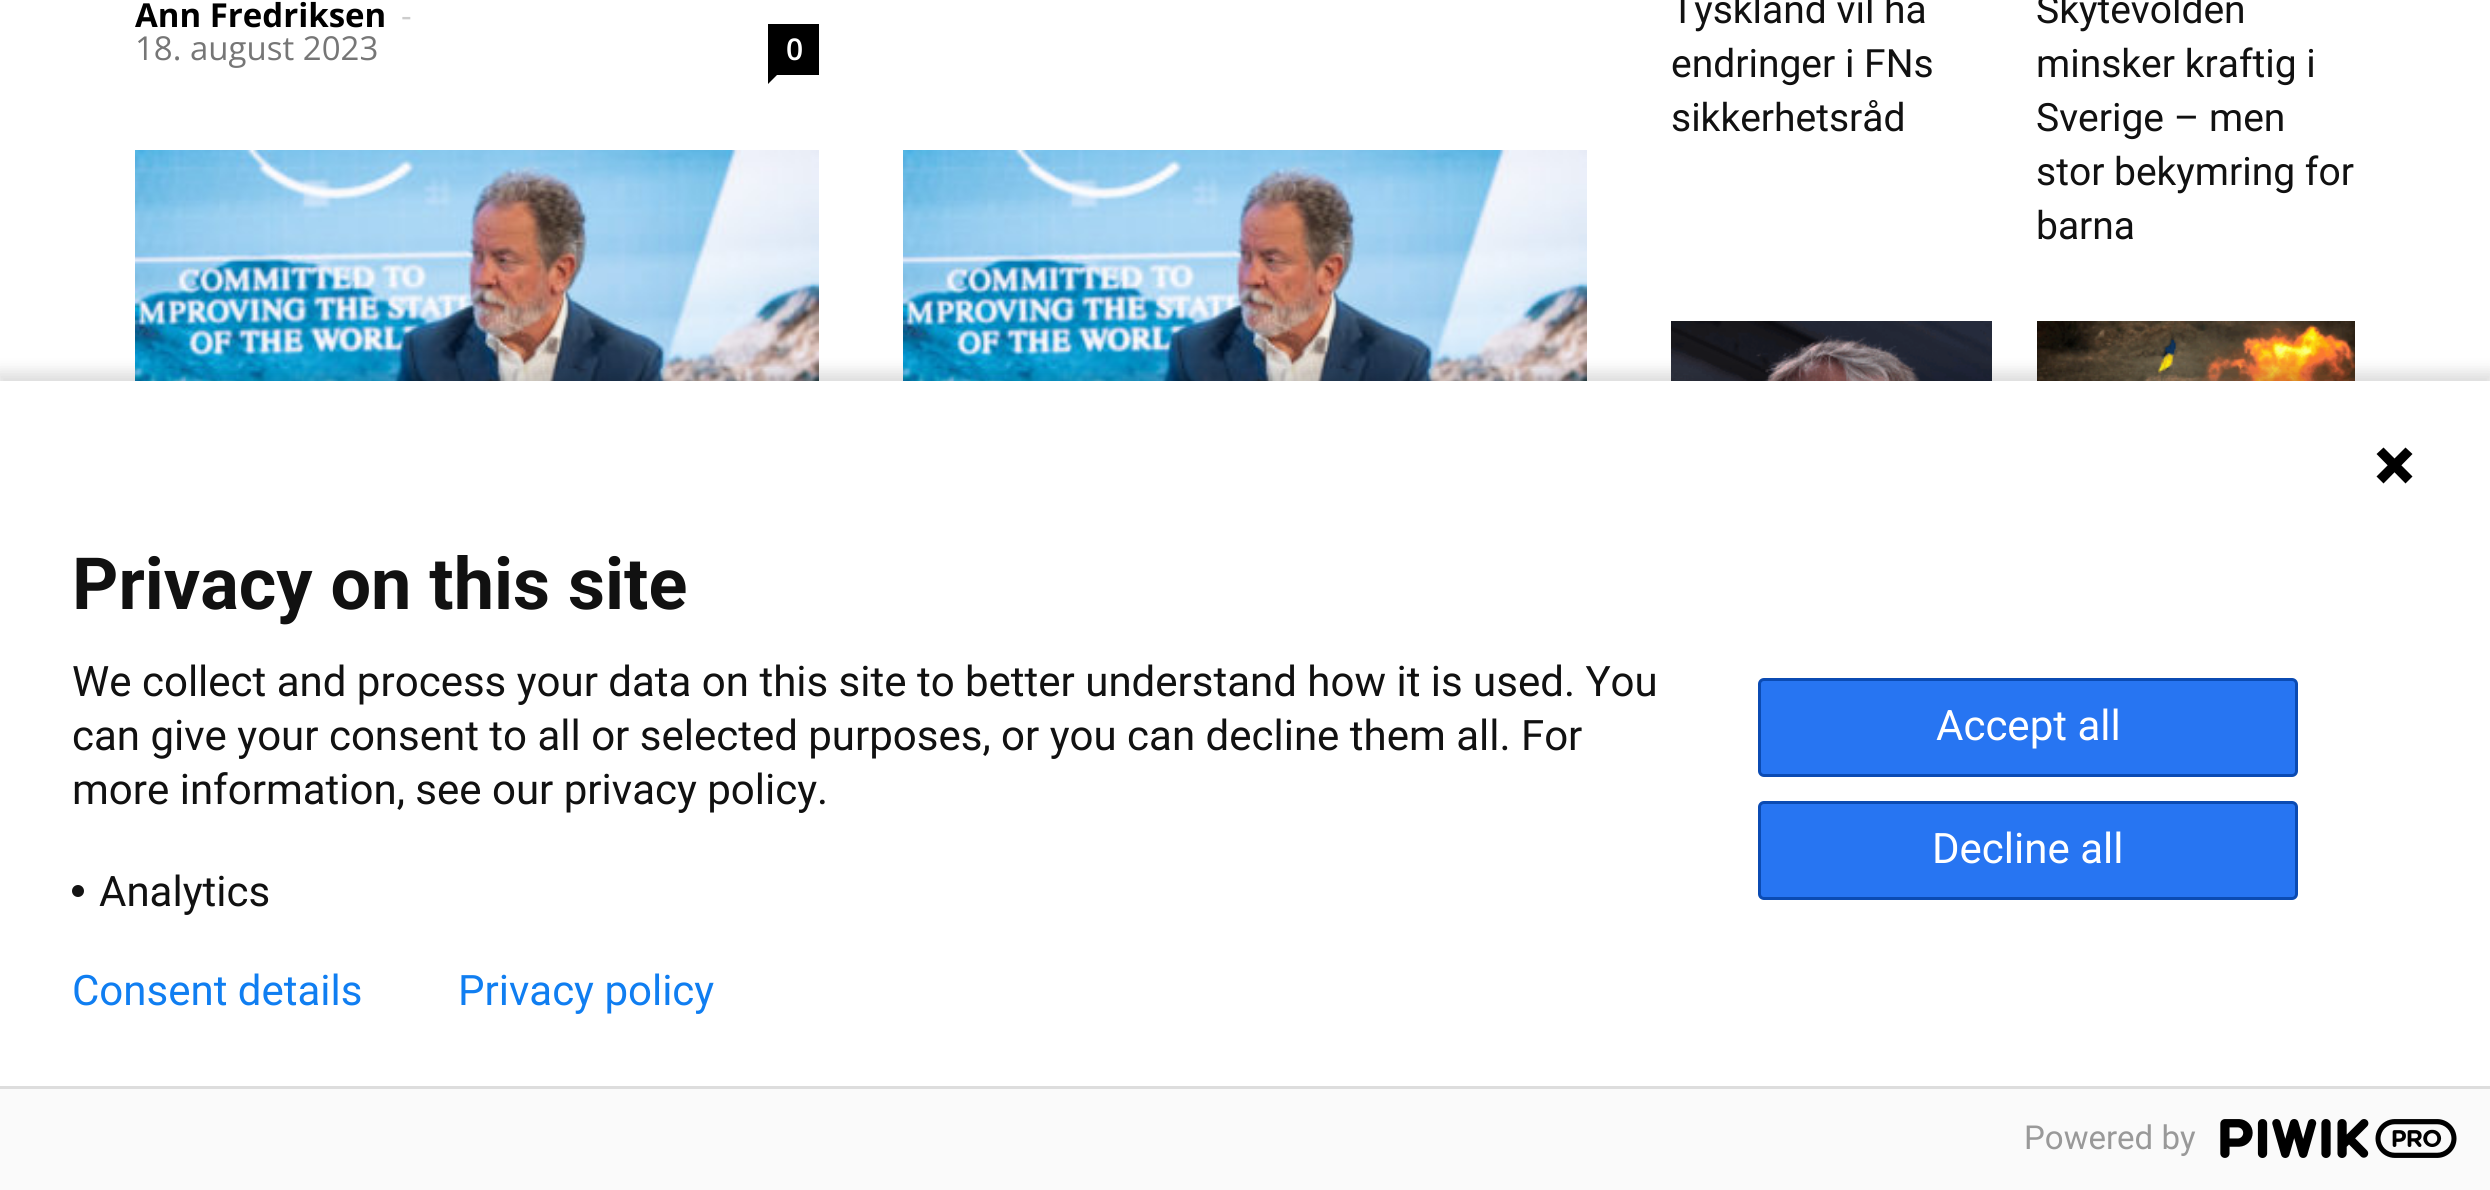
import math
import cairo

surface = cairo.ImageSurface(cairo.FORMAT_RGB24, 2490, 1190)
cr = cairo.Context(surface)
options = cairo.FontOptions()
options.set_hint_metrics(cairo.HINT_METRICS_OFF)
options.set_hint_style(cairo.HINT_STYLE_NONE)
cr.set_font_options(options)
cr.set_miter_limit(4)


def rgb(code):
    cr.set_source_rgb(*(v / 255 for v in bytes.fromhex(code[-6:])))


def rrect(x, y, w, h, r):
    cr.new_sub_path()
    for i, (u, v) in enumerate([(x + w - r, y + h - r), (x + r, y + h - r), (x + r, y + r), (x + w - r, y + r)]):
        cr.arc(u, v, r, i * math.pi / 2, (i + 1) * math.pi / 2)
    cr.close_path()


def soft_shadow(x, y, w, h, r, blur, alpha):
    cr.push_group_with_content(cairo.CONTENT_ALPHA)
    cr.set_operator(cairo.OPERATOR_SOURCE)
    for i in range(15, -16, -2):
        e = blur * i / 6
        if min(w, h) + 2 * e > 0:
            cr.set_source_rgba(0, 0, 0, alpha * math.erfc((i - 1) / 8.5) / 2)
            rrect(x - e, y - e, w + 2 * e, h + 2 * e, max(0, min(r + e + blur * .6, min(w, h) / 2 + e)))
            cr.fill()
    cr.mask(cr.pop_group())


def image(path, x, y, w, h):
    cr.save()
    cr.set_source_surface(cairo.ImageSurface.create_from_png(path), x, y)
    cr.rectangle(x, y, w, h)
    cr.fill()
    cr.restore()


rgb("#ffffff")
cr.paint()
rgb("#000000")
cr.rectangle(768, 24, 51, 51)
cr.fill()
cr.new_path()
cr.move_to(768, 75)
cr.line_to(777, 75)
cr.line_to(768, 84)
cr.close_path()
cr.fill()
image("img/1.png", 135, 150, 684, 231)
image("img/2.png", 903, 150, 684, 231)
image("img/3.png", 1671, 321, 321, 60)
image("img/4.png", 2037, 321, 318, 60)
rgb("#000000")
soft_shadow(-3, 372, 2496, 816, 0, 7.5, 0.14)
rgb("#ffffff")
cr.rectangle(0, 381, 2490, 705)
cr.fill()
rgb("#000000")
cr.new_path()
cr.move_to(2376.5, 454)
cr.line_to(2383.5, 447.5)
cr.line_to(2412.5, 476.5)
cr.line_to(2405.5, 483.5)
cr.line_to(2376.5, 454)
cr.fill()
cr.new_path()
cr.move_to(2405.5, 447.5)
cr.line_to(2412.5, 454)
cr.line_to(2383.5, 483.5)
cr.line_to(2376.5, 476.5)
cr.line_to(2405.5, 447.5)
cr.fill()
rgb("#131313")
cr.arc(78, 891, 6, 0, 2 * math.pi)
cr.fill()
rgb("#2775f2")
rrect(1759.5, 679.5, 537, 96, 4.5)
cr.fill_preserve()
rgb("#0b4bb3")
cr.set_line_width(3)
cr.stroke()
rgb("#2775f2")
rrect(1759.5, 802.5, 537, 96, 4.5)
cr.fill_preserve()
rgb("#0b4bb3")
cr.stroke()
rgb("#fafafa")
cr.rectangle(0, 1089, 2490, 101)
cr.fill()
rgb("#dddddd")
cr.rectangle(0, 1086, 2490, 3)
cr.fill()
image("img/5.png", 2220, 1119, 237, 39)
cr.select_font_face("Open Sans", cairo.FONT_SLANT_NORMAL, cairo.FONT_WEIGHT_BOLD)
cr.set_font_size(33)
rgb("#000000")
cr.move_to(135, 27)
cr.show_text("Ann Fredriksen")
cr.select_font_face("Open Sans")
rgb("#cccccc")
cr.move_to(401, 27)
cr.show_text("-")
rgb("#767676")
cr.move_to(135, 60)
cr.show_text("18. august 2023")
cr.select_font_face("Open Sans SemiBold")
cr.set_font_size(30)
rgb("#ffffff")
cr.move_to(786, 60)
cr.show_text("0")
cr.select_font_face("Roboto")
cr.set_font_size(39)
rgb("#111111")
for x, y, s in [
    (1671, 23, "Tyskland vil ha"),
    (1671, 77, "endringer i FNs"),
    (1671, 131, "sikkerhetsråd"),
    (2036, 23, "Skytevolden"),
    (2036, 77, "minsker kraftig i"),
    (2036, 131, "Sverige – men"),
    (2036, 185, "stor bekymring for"),
    (2036, 239, "barna"),
]:
    cr.move_to(x, y)
    cr.show_text(s)
cr.select_font_face("Roboto", cairo.FONT_SLANT_NORMAL, cairo.FONT_WEIGHT_BOLD)
cr.set_font_size(72)
cr.move_to(72, 609)
cr.show_text("Privacy on this site")
cr.select_font_face("Roboto")
cr.set_font_size(42)
for x, y, s in [
    (72, 696, "We collect and process your data on this site to better understand how it is used. You"),
    (72, 750, "can give your consent to all or selected purposes, or you can decline them all. For"),
    (72, 804, "more information, see our privacy policy."),
    (99, 906, "Analytics"),
]:
    cr.move_to(x, y)
    cr.show_text(s)
rgb("#ffffff")
cr.move_to(1936, 740)
cr.show_text("Accept all")
cr.move_to(1932, 863)
cr.show_text("Decline all")
rgb("#107ef1")
cr.move_to(72, 1005)
cr.show_text("Consent details")
cr.move_to(458, 1005)
cr.show_text("Privacy policy")
cr.set_font_size(33)
rgb("#999999")
cr.move_to(2024, 1149)
cr.show_text("Powered by")
surface.write_to_png("page.png")
